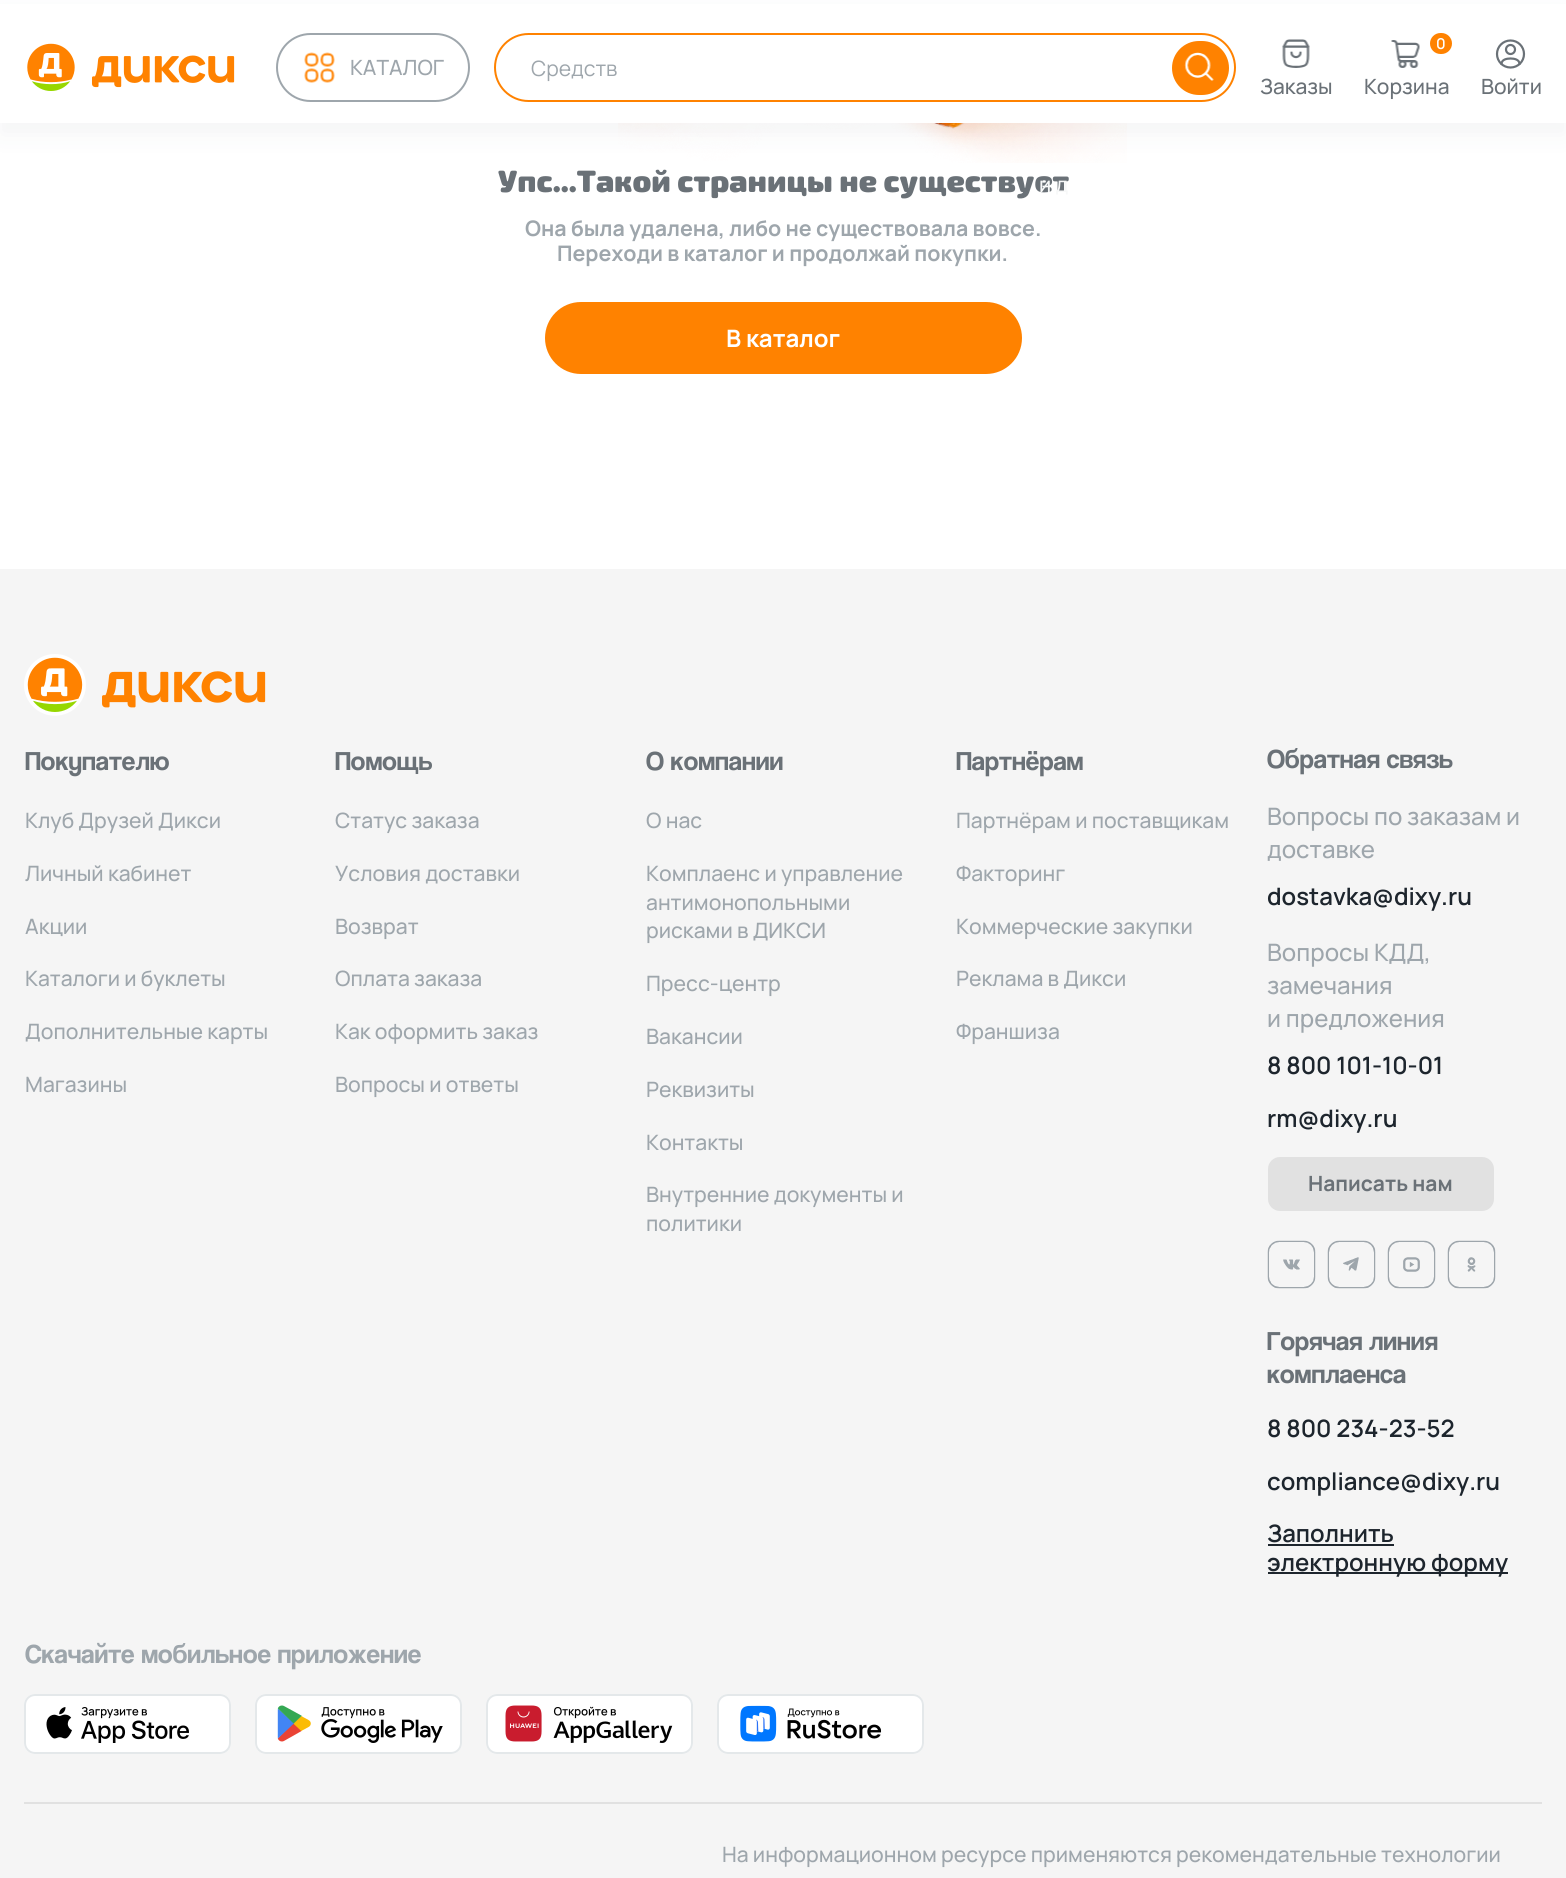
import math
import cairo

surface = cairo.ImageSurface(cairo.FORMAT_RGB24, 1566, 1878)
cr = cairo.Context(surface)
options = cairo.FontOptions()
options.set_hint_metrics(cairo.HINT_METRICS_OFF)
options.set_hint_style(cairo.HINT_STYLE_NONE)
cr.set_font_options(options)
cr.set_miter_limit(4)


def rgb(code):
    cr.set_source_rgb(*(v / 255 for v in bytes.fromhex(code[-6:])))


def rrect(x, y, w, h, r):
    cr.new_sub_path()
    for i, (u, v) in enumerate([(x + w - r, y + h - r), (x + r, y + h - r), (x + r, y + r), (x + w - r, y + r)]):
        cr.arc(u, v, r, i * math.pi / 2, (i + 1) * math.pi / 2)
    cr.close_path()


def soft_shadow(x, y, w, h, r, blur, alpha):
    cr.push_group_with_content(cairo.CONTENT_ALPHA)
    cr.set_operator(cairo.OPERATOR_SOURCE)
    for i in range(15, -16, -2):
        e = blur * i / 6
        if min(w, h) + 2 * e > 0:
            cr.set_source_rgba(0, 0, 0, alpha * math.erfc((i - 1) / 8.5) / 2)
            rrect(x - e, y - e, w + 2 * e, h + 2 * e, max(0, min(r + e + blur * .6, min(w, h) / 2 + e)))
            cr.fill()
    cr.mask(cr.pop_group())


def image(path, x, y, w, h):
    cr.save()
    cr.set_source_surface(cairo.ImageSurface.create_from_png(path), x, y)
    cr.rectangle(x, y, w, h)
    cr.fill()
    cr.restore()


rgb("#ffffff")
cr.paint()
image("img/7.png", 618, 123, 509, 40)
rgb("#272e40")
soft_shadow(0, 12, 1566, 123, 0, 12, 0.05)
rgb("#ffffff")
cr.rectangle(0, 4, 1566, 119)
cr.fill()
image("img/1.png", 27, 43, 208, 48)
rrect(277, 34, 192, 67, 33.5)
rgb("#9ea6ac")
cr.stroke()
image("img/2.png", 304, 52, 31, 31)
rrect(495, 34, 740, 67, 33.5)
rgb("#ff8200")
cr.stroke()
rrect(1172, 41, 57, 54, 27)
cr.fill()
image("img/3.png", 1184, 52, 30, 29)
image("img/4.png", 1391, 40, 29, 28)
rrect(1430, 33, 22, 21, 10.5)
cr.fill()
image("img/5.png", 1495, 39, 31, 30)
image("img/6.png", 1282, 39, 28, 29)
rrect(545, 302, 477, 72, 36)
cr.fill()
rgb("#f5f5f5")
cr.rectangle(0, 569, 1566, 1309)
cr.fill()
image("img/8.png", 24, 654, 242, 62)
rgb("#e1e1e1")
rrect(1268, 1157, 226, 54, 12)
cr.fill()
image("img/9.png", 1267, 1240, 49, 49)
image("img/10.png", 1327, 1240, 49, 49)
image("img/11.png", 1387, 1240, 49, 49)
image("img/12.png", 1447, 1240, 49, 49)
rgb("#1d252d")
cr.rectangle(1268, 1544, 126, 2)
cr.fill()
cr.rectangle(1268, 1572, 240, 2)
cr.fill()
rgb("#ffffff")
rrect(24, 1694, 207, 60, 11)
cr.fill()
image("img/13.png", 46, 1707, 143, 36)
rrect(25, 1695, 205, 58, 10)
rgb("#e4e8ea")
cr.stroke()
rgb("#ffffff")
rrect(255, 1694, 207, 60, 11)
cr.fill()
image("img/14.png", 277, 1705, 166, 38)
rrect(256, 1695, 205, 58, 10)
rgb("#e4e8ea")
cr.stroke()
rgb("#ffffff")
rrect(486, 1694, 207, 60, 11)
cr.fill()
image("img/15.png", 505, 1705, 168, 38)
rrect(487, 1695, 205, 58, 10)
rgb("#e4e8ea")
cr.stroke()
rgb("#ffffff")
rrect(717, 1694, 207, 60, 11)
cr.fill()
image("img/16.png", 740, 1705, 142, 37)
rrect(718, 1695, 205, 58, 10)
rgb("#e4e8ea")
cr.stroke()
rgb("#e1e1e1")
cr.rectangle(24, 1802, 1518, 2)
cr.fill()
cr.select_font_face("Manrope Medium")
cr.set_font_size(21)
rgb("#9ea6ac")
cr.move_to(350, 75)
cr.show_text("КАТАЛОГ")
cr.select_font_face("Manrope")
cr.set_font_size(21.15)
cr.move_to(531, 76)
cr.show_text("Средств")
cr.select_font_face("Manrope SemiBold")
cr.set_font_size(15)
rgb("#ffffff")
cr.move_to(1436, 49)
cr.show_text("0")
cr.select_font_face("Manrope Medium")
cr.set_font_size(21)
rgb("#6a7177")
for x, y, s in [
    (1364, 94, "Корзина"),
    (1481, 94, "Войти"),
    (1260, 94, "Заказы"),
]:
    cr.move_to(x, y)
    cr.show_text(s)
cr.select_font_face("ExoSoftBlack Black")
cr.set_font_size(30.9)
cr.move_to(498, 192)
cr.show_text("Упс...Такой страницы не существует")
cr.select_font_face("Manrope Medium")
cr.set_font_size(21)
rgb("#f7f8f8")
cr.move_to(1039, 192)
cr.show_text("и д")
cr.select_font_face("Manrope", cairo.FONT_SLANT_NORMAL, cairo.FONT_WEIGHT_BOLD)
cr.set_font_size(21.4)
rgb("#9ea6ac")
cr.move_to(525, 236)
cr.show_text("Она была удалена, либо не существовала вовсе.")
cr.move_to(557, 261)
cr.show_text("Переходи в каталог и продолжай покупки.")
cr.set_font_size(24)
rgb("#ffffff")
cr.move_to(726, 347)
cr.show_text("В каталог")
cr.select_font_face("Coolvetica")
cr.set_font_size(27)
rgb("#6a7177")
cr.move_to(25, 770)
cr.show_text("Покупателю")
cr.select_font_face("Manrope Medium")
cr.set_font_size(21.15)
rgb("#9ea6ac")
for x, y, s in [
    (25, 828, "Клуб Друзей Дикси"),
    (25, 881, "Личный кабинет"),
    (25, 934, "Акции"),
    (25, 986, "Каталоги и буклеты"),
    (25, 1039, "Дополнительные карты"),
    (25, 1092, "Магазины"),
]:
    cr.move_to(x, y)
    cr.show_text(s)
cr.select_font_face("Coolvetica")
cr.set_font_size(27)
rgb("#6a7177")
cr.move_to(335, 770)
cr.show_text("Помощь")
cr.select_font_face("Manrope Medium")
cr.set_font_size(21.15)
rgb("#9ea6ac")
for x, y, s in [
    (335, 828, "Статус заказа"),
    (335, 881, "Условия доставки"),
    (335, 934, "Возврат"),
    (335, 986, "Оплата заказа"),
    (335, 1039, "Как оформить заказ"),
    (335, 1092, "Вопросы и ответы"),
]:
    cr.move_to(x, y)
    cr.show_text(s)
cr.select_font_face("Coolvetica")
cr.set_font_size(27)
rgb("#6a7177")
cr.move_to(646, 770)
cr.show_text("О компании")
cr.select_font_face("Manrope Medium")
cr.set_font_size(21.15)
rgb("#9ea6ac")
for x, y, s in [
    (646, 828, "О нас"),
    (646, 881, "Комплаенс и управление"),
    (646, 910, "антимонопольными"),
    (646, 938, "рисками в ДИКСИ"),
    (646, 991, "Пресс-центр"),
    (646, 1044, "Вакансии"),
    (646, 1097, "Реквизиты"),
    (646, 1150, "Контакты"),
    (646, 1202, "Внутренние документы и"),
    (646, 1231, "политики"),
]:
    cr.move_to(x, y)
    cr.show_text(s)
cr.select_font_face("Coolvetica")
cr.set_font_size(27)
rgb("#6a7177")
cr.move_to(956, 770)
cr.show_text("Партнёрам")
cr.select_font_face("Manrope Medium")
cr.set_font_size(21.15)
rgb("#9ea6ac")
for x, y, s in [
    (956, 828, "Партнёрам и поставщикам"),
    (956, 881, "Факторинг"),
    (956, 934, "Коммерческие закупки"),
    (956, 986, "Реклама в Дикси"),
    (956, 1039, "Франшиза"),
]:
    cr.move_to(x, y)
    cr.show_text(s)
cr.select_font_face("Coolvetica")
cr.set_font_size(27)
rgb("#6a7177")
cr.move_to(1267, 768)
cr.show_text("Обратная связь")
cr.select_font_face("Manrope Medium")
cr.set_font_size(24)
rgb("#9ea6ac")
cr.move_to(1267, 825)
cr.show_text("Вопросы по заказам и")
cr.move_to(1267, 858)
cr.show_text("доставке")
cr.select_font_face("Manrope SemiBold")
rgb("#1d252d")
cr.move_to(1267, 905)
cr.show_text("dostavka@dixy.ru")
cr.select_font_face("Manrope Medium")
rgb("#9ea6ac")
for x, y, s in [
    (1267, 961, "Вопросы КДД,"),
    (1267, 994, "замечания"),
    (1267, 1027, "и предложения"),
]:
    cr.move_to(x, y)
    cr.show_text(s)
cr.select_font_face("Manrope SemiBold")
rgb("#1d252d")
cr.move_to(1267, 1074)
cr.show_text("8 800 101-10-01")
cr.move_to(1267, 1127)
cr.show_text("rm@dixy.ru")
cr.select_font_face("Manrope", cairo.FONT_SLANT_NORMAL, cairo.FONT_WEIGHT_BOLD)
cr.set_font_size(21)
rgb("#6a7177")
cr.move_to(1308, 1191)
cr.show_text("Написать нам")
cr.select_font_face("Coolvetica")
cr.set_font_size(27)
cr.move_to(1267, 1350)
cr.show_text("Горячая линия")
cr.move_to(1267, 1383)
cr.show_text("комплаенса")
cr.select_font_face("Manrope SemiBold")
cr.set_font_size(24)
rgb("#1d252d")
for x, y, s in [
    (1267, 1437, "8 800 234-23-52"),
    (1267, 1490, "compliance@dixy.ru"),
    (1267, 1542, "Заполнить"),
    (1267, 1571, "электронную форму"),
]:
    cr.move_to(x, y)
    cr.show_text(s)
cr.select_font_face("Coolvetica")
cr.set_font_size(27)
rgb("#9ea6ac")
cr.move_to(25, 1663)
cr.show_text("Скачайте мобильное приложение")
cr.select_font_face("Manrope Medium")
cr.set_font_size(21.15)
cr.move_to(722, 1862)
cr.show_text("На информационном ресурсе применяются рекомендательные технологии")
surface.write_to_png("page.png")
